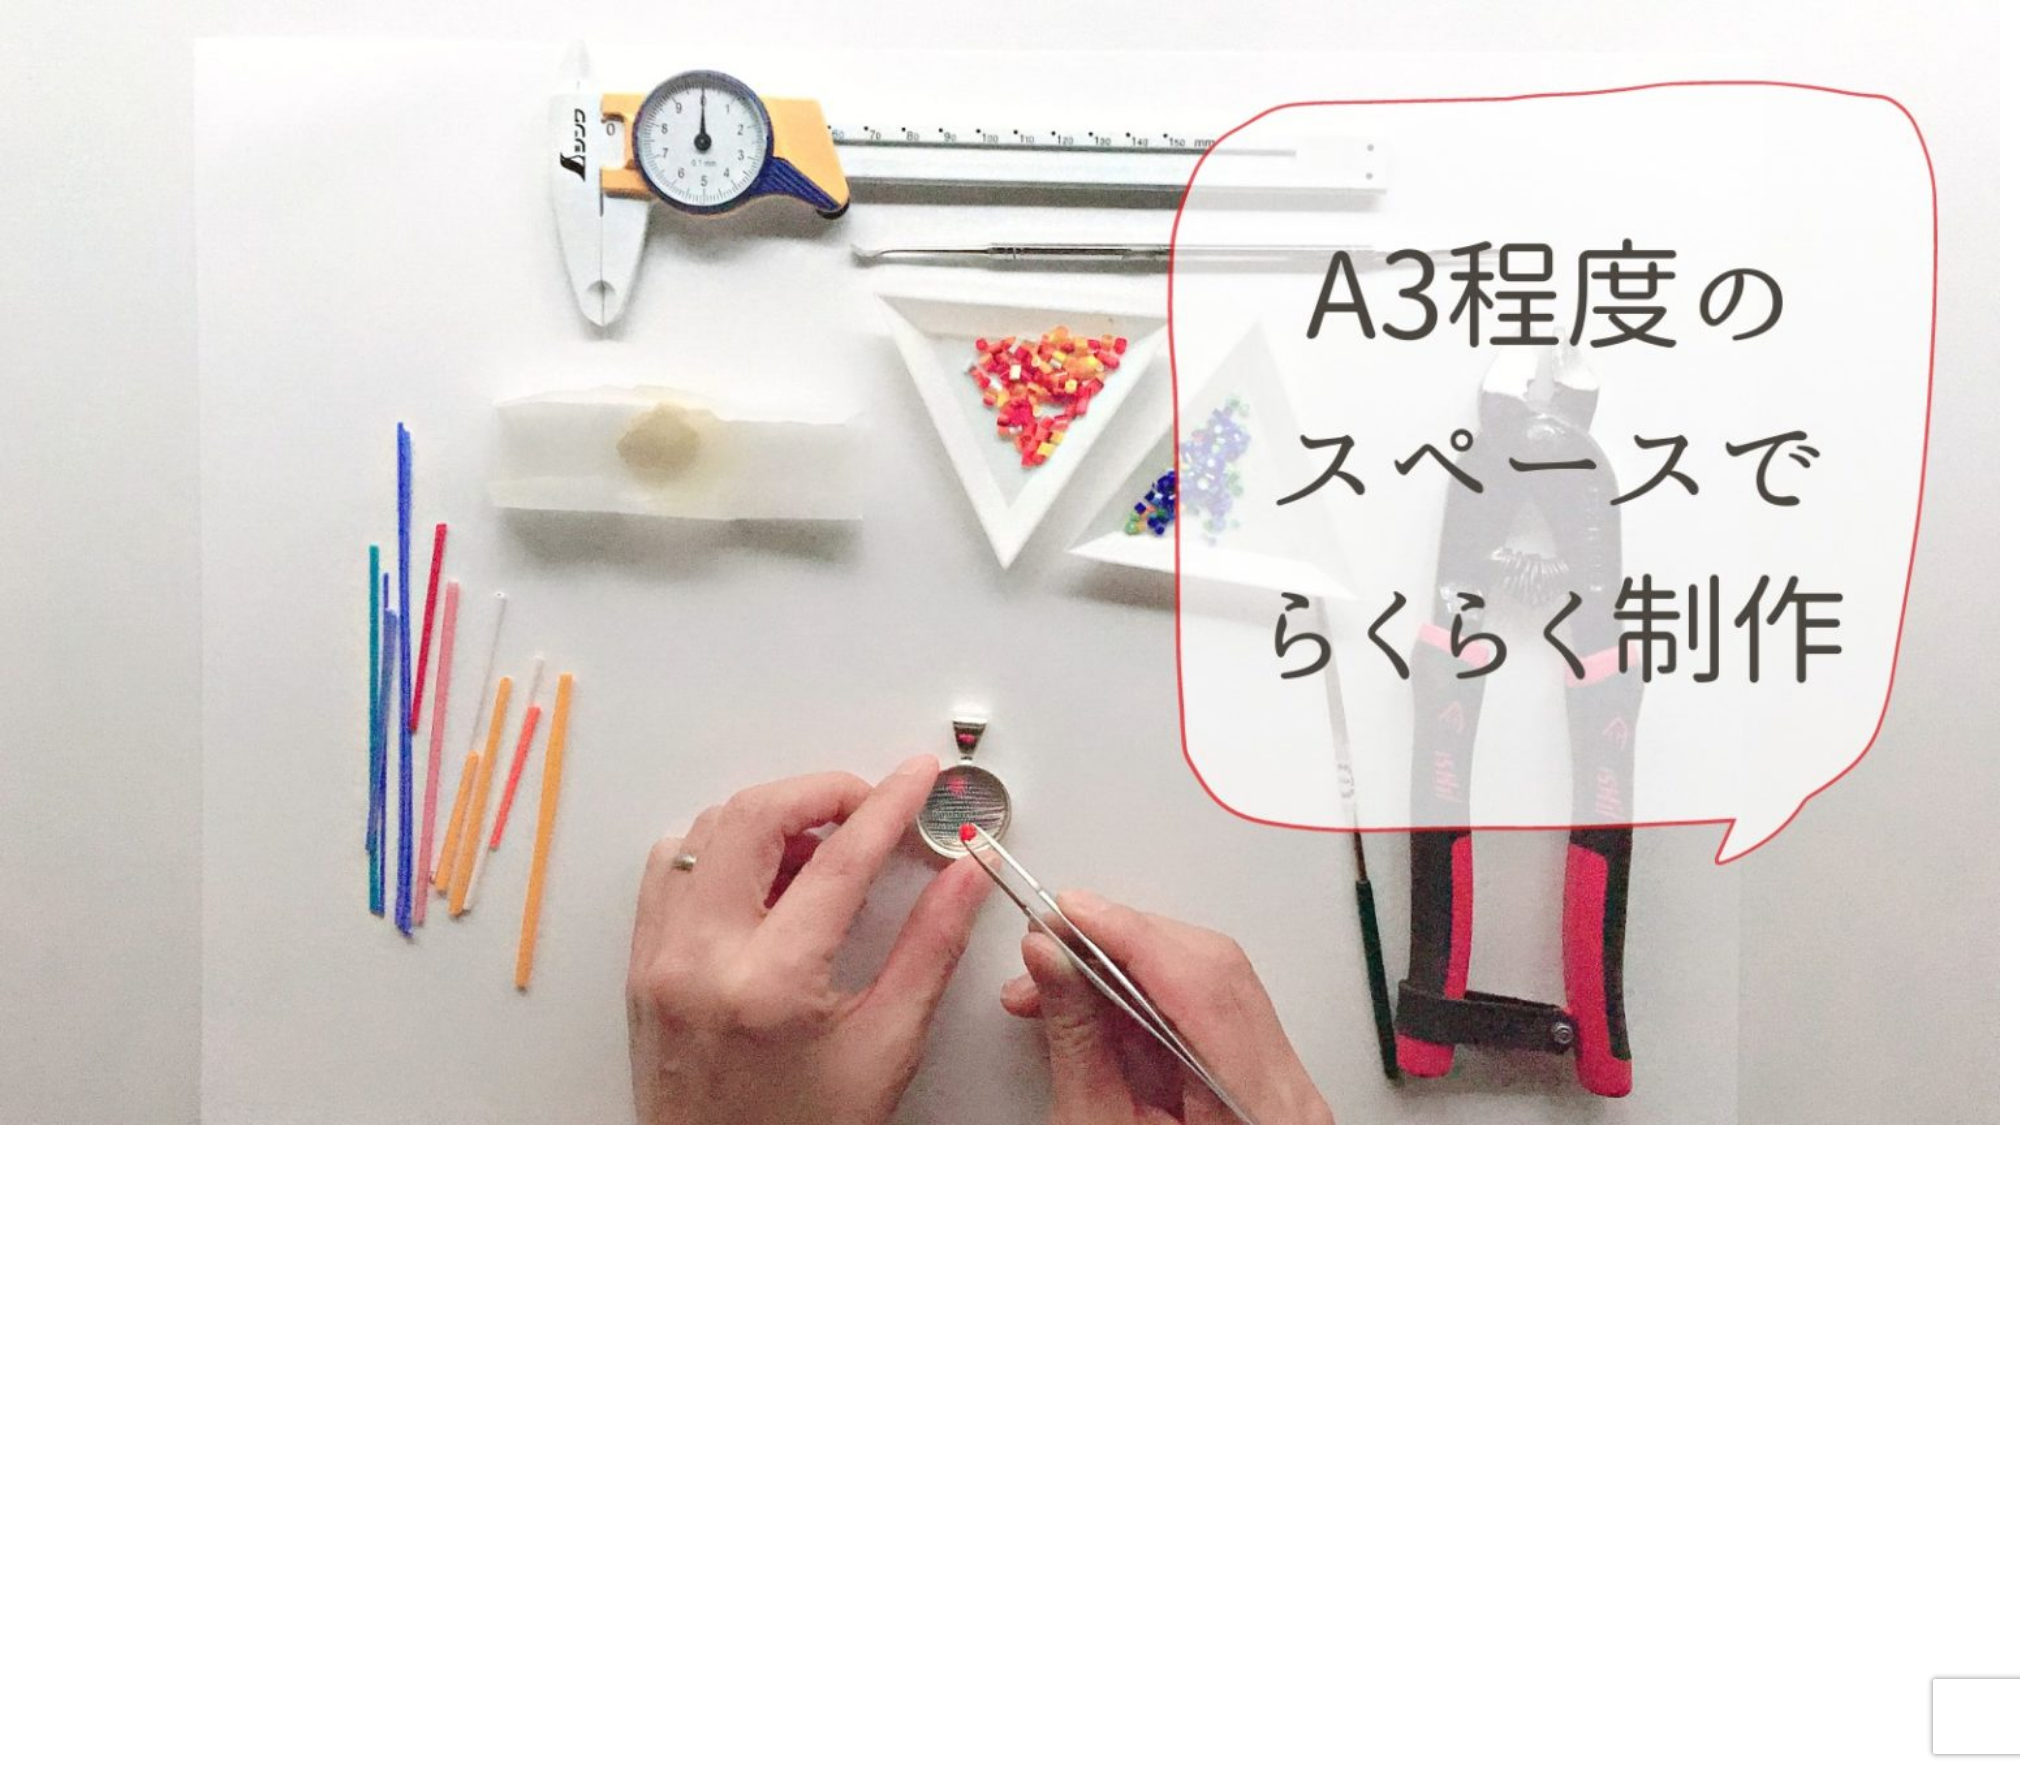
import math
import cairo

surface = cairo.ImageSurface(cairo.FORMAT_RGB24, 2020, 1771)
cr = cairo.Context(surface)
options = cairo.FontOptions()
options.set_hint_metrics(cairo.HINT_METRICS_OFF)
options.set_hint_style(cairo.HINT_STYLE_NONE)
cr.set_font_options(options)
cr.set_miter_limit(4)


def rgb(code):
    cr.set_source_rgb(*(v / 255 for v in bytes.fromhex(code[-6:])))


def rrect(x, y, w, h, r):
    cr.new_sub_path()
    for i, (u, v) in enumerate([(x + w - r, y + h - r), (x + r, y + h - r), (x + r, y + r), (x + w - r, y + r)]):
        cr.arc(u, v, r, i * math.pi / 2, (i + 1) * math.pi / 2)
    cr.close_path()


def soft_shadow(x, y, w, h, r, blur, alpha):
    cr.push_group_with_content(cairo.CONTENT_ALPHA)
    cr.set_operator(cairo.OPERATOR_SOURCE)
    for i in range(15, -16, -2):
        e = blur * i / 6
        if min(w, h) + 2 * e > 0:
            cr.set_source_rgba(0, 0, 0, alpha * math.erfc((i - 1) / 8.5) / 2)
            rrect(x - e, y - e, w + 2 * e, h + 2 * e, max(0, min(r + e + blur * .6, min(w, h) / 2 + e)))
            cr.fill()
    cr.mask(cr.pop_group())


def image(path, x, y, w, h):
    cr.save()
    cr.set_source_surface(cairo.ImageSurface.create_from_png(path), x, y)
    cr.rectangle(x, y, w, h)
    cr.fill()
    cr.restore()


rgb("#ffffff")
cr.paint()
image("img/1.png", 0, 0, 2000, 1125)
cr.save()
cr.set_fill_rule(cairo.FILL_RULE_EVEN_ODD)
cr.new_path()
cr.move_to(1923, 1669)
cr.line_to(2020, 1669)
cr.line_to(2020, 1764)
cr.line_to(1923, 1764)
cr.close_path()
cr.move_to(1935.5, 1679)
cr.line_to(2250.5, 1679)
cr.curve_to(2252, 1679, 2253, 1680, 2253, 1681.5)
cr.line_to(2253, 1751.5)
cr.curve_to(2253, 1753, 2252, 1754, 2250.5, 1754)
cr.line_to(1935.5, 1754)
cr.curve_to(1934, 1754, 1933, 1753, 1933, 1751.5)
cr.line_to(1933, 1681.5)
cr.curve_to(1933, 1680, 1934, 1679, 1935.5, 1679)
cr.close_path()
cr.clip()
rgb("#808080")
soft_shadow(1933, 1679, 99, 75, 2.5, 3, 1)
cr.restore()
surface.write_to_png("page.png")
